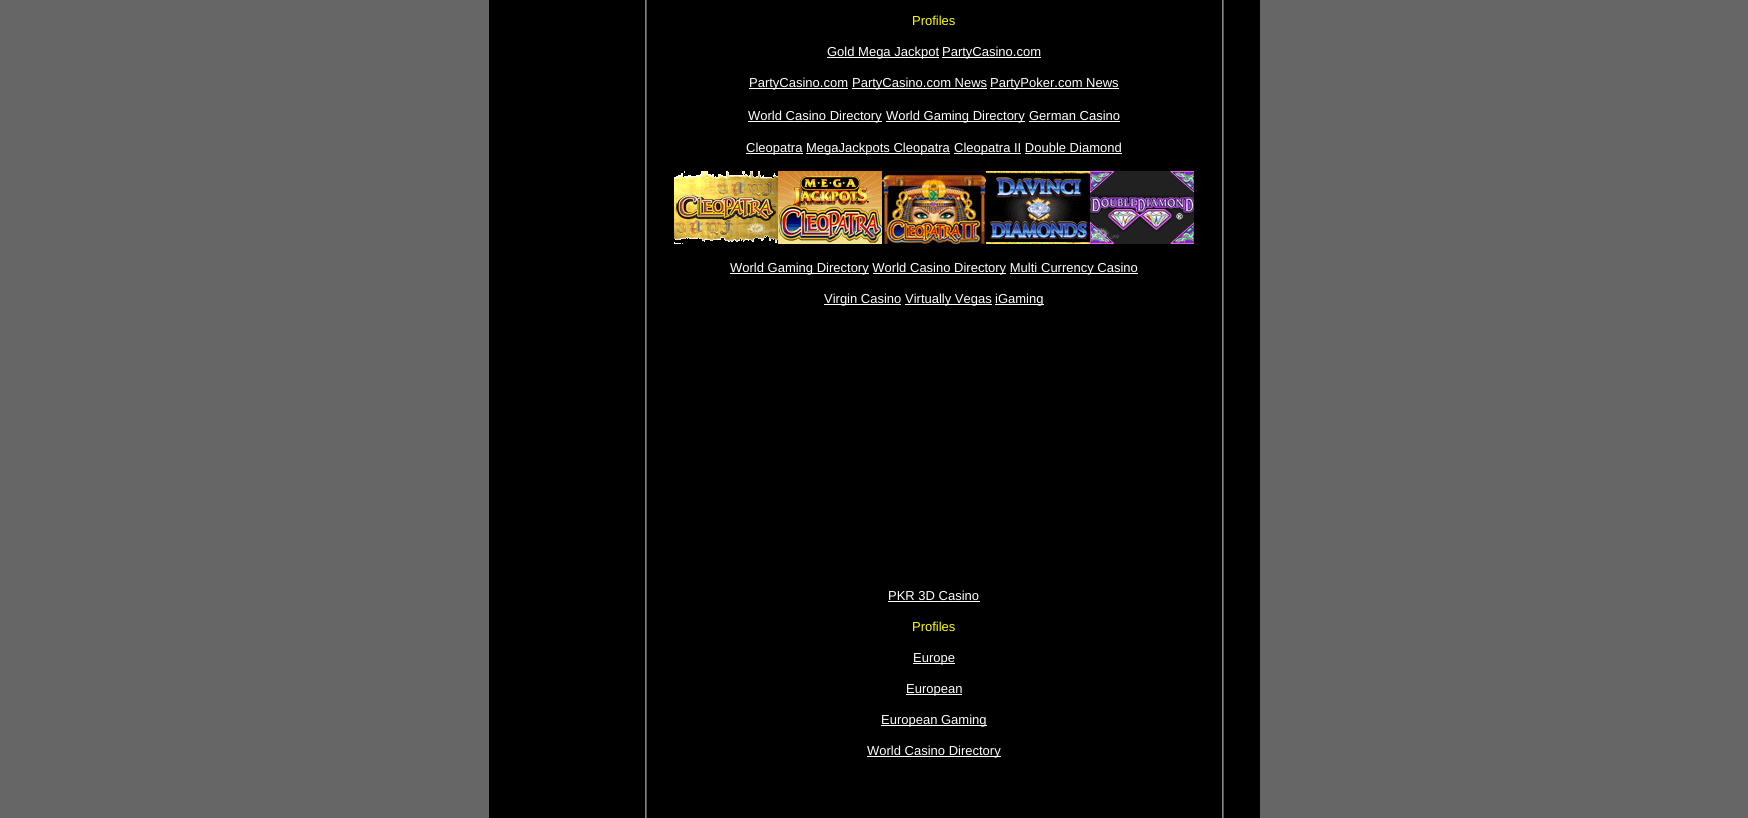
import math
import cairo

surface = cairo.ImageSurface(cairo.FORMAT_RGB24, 1748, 818)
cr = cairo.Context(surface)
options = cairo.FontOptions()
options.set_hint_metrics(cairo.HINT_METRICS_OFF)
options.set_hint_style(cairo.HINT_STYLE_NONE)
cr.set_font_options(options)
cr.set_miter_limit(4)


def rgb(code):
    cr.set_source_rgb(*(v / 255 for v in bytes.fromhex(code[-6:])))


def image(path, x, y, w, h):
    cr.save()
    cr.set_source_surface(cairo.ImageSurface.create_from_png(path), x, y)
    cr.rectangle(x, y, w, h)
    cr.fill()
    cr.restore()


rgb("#666666")
cr.paint()
cr.rectangle(490, -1, 769, 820)
rgb("#000000")
cr.stroke()
for x, y, w, h, color in [
    (491, 0, 767, 818, "#000000"),
    (1223, 0, 1, 818, "#555555"),
    (645, 0, 1, 818, "#808080"),
    (1222, 0, 1, 818, "#808080"),
    (646, 0, 1, 818, "#555555"),
    (827, 57, 112, 1, "#ffffff"),
    (942, 57, 99, 1, "#ffffff"),
    (749, 88, 99, 1, "#ffffff"),
    (852, 88, 135, 1, "#ffffff"),
    (990, 88, 129, 1, "#ffffff"),
    (748, 121, 134, 1, "#ffffff"),
    (886, 121, 139, 1, "#ffffff"),
    (1029, 121, 91, 1, "#ffffff"),
    (746, 153, 57, 1, "#ffffff"),
    (806, 153, 144, 1, "#ffffff"),
    (954, 153, 67, 1, "#ffffff"),
    (1025, 153, 97, 1, "#ffffff"),
]:
    rgb(color)
    cr.rectangle(x, y, w, h)
    cr.fill()
image("img/1.png", 674, 171, 104, 73)
image("img/2.png", 778, 171, 104, 73)
image("img/3.png", 882, 171, 104, 73)
image("img/4.png", 986, 171, 104, 73)
image("img/5.png", 1090, 171, 104, 73)
for x, y, w, h, color in [
    (730, 273, 139, 1, "#ffffff"),
    (873, 273, 133, 1, "#ffffff"),
    (1010, 273, 128, 1, "#ffffff"),
    (824, 304, 77, 1, "#ffffff"),
    (905, 304, 87, 1, "#ffffff"),
    (995, 304, 49, 1, "#ffffff"),
    (888, 601, 92, 1, "#ffffff"),
    (913, 663, 42, 1, "#ffffff"),
    (906, 694, 56, 1, "#ffffff"),
    (881, 725, 106, 1, "#ffffff"),
    (867, 756, 134, 1, "#ffffff"),
]:
    rgb(color)
    cr.rectangle(x, y, w, h)
    cr.fill()
cr.select_font_face("Liberation Sans")
cr.set_font_size(13)
rgb("#ffff00")
cr.move_to(912, 25)
cr.show_text("Profiles")
rgb("#ffffff")
for x, y, s in [
    (827, 56, "Gold Mega Jackpot"),
    (942, 56, "PartyCasino.com"),
    (749, 87, "PartyCasino.com"),
    (852, 87, "PartyCasino.com News"),
    (990, 87, "PartyPoker.com News"),
    (748, 120, "World Casino Directory"),
    (886, 120, "World Gaming Directory"),
    (1029, 120, "German Casino"),
    (746, 152, "Cleopatra"),
    (806, 152, "MegaJackpots Cleopatra"),
    (954, 152, "Cleopatra II Double Diamond"),
    (730, 272, "World Gaming Directory World"),
    (910, 272, "Casino Directory Multi"),
    (1041, 272, "Currency Casino"),
    (824, 303, "Virgin Casino"),
    (905, 303, "Virtually Vegas"),
    (995, 303, "iGaming"),
    (888, 600, "PKR 3D Casino"),
]:
    cr.move_to(x, y)
    cr.show_text(s)
rgb("#ffff00")
cr.move_to(912, 631)
cr.show_text("Profiles")
rgb("#ffffff")
for x, y, s in [
    (913, 662, "Europe"),
    (906, 693, "European"),
    (881, 724, "European Gaming"),
    (867, 755, "World Casino Directory"),
]:
    cr.move_to(x, y)
    cr.show_text(s)
surface.write_to_png("page.png")
